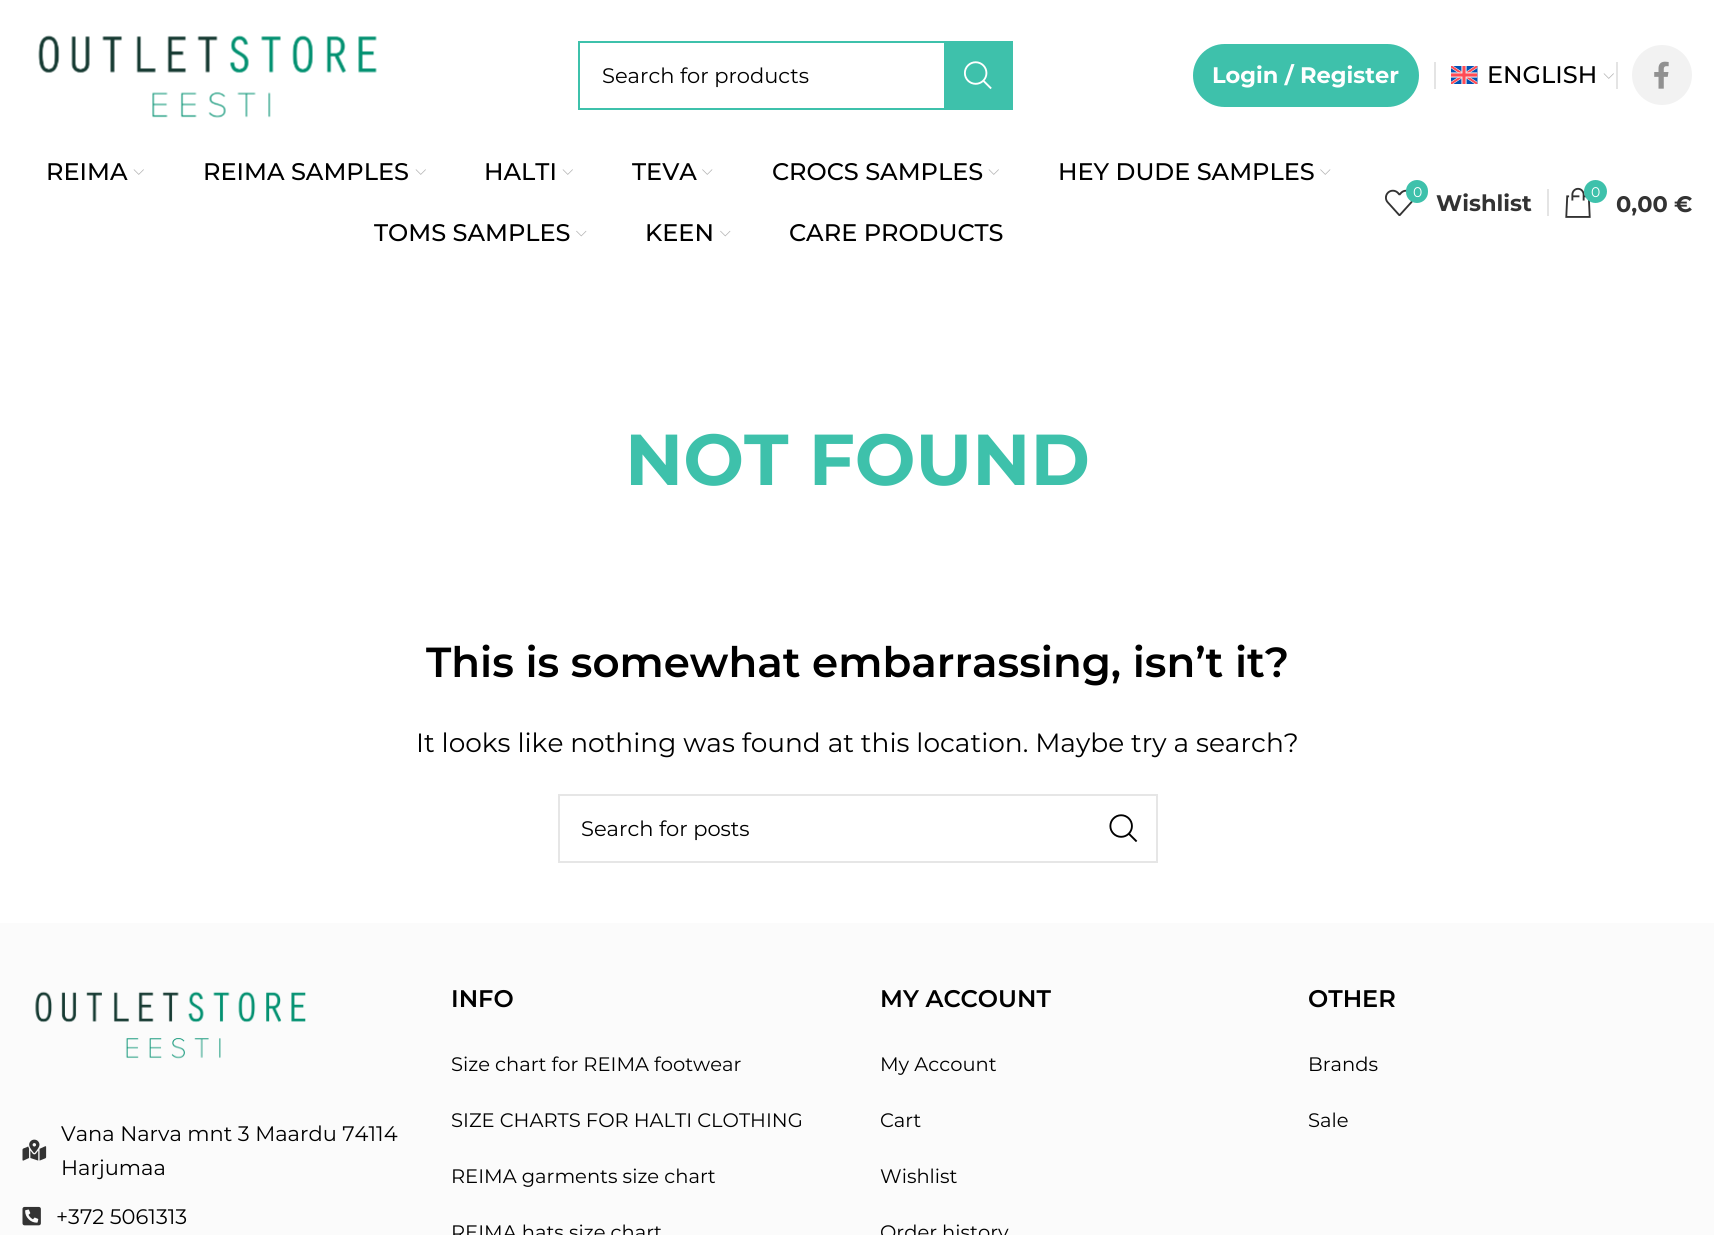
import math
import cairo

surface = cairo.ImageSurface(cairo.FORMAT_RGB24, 1714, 1235)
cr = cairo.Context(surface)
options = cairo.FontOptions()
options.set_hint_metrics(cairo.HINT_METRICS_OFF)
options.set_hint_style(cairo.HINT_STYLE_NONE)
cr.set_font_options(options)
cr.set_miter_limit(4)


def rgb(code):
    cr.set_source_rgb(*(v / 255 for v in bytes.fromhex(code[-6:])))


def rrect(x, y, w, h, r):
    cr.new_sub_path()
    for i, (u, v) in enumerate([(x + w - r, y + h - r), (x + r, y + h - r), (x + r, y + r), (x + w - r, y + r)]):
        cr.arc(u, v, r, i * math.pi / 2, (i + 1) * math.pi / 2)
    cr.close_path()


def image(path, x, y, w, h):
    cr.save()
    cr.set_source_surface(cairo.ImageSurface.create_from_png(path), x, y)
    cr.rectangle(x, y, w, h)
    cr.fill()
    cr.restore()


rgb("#ffffff")
cr.paint()
image("img/1.png", 38, 35, 339, 83)
cr.rectangle(579, 42, 433, 67)
rgb("#3ec1ab")
cr.stroke()
cr.rectangle(944, 43, 67, 65)
cr.fill()
image("img/2.png", 964, 61, 28, 29)
rrect(1193, 44, 226, 63, 31.5)
cr.fill()
rgb("#e4e4e4")
cr.rectangle(1434, 62, 2, 27)
cr.fill()
image("img/3.png", 1451, 66, 27, 18)
image("img/4.png", 1603, 73, 11, 6)
cr.rectangle(1616, 62, 2, 27)
cr.fill()
rgb("#f2f2f2")
cr.arc(1662, 75, 30, 0, 2 * math.pi)
cr.fill()
image("img/5.png", 1654, 61, 15, 28)
image("img/4.png", 133, 169, 11, 6)
image("img/4.png", 415, 169, 11, 6)
image("img/4.png", 562, 169, 11, 6)
image("img/6.png", 702, 169, 11, 6)
image("img/4.png", 988, 169, 11, 6)
image("img/6.png", 1320, 169, 11, 6)
image("img/7.png", 576, 230, 11, 7)
image("img/7.png", 720, 230, 11, 7)
image("img/8.png", 1385, 189, 28, 27)
rgb("#3ec1ab")
rrect(1406, 180, 22, 23, 11)
cr.fill()
rgb("#e4e4e4")
cr.rectangle(1547, 189, 2, 27)
cr.fill()
image("img/9.png", 1565, 187, 26, 31)
rgb("#3ec1ab")
cr.arc(1595.5, 191.5, 11.5, 0, 2 * math.pi)
cr.fill()
cr.rectangle(559, 795, 598, 67)
rgb("#e6e6e6")
cr.stroke()
image("img/10.png", 1109, 814, 29, 28)
rgb("#fbfbfb")
cr.rectangle(0, 923, 1714, 312)
cr.fill()
image("img/11.png", 35, 991, 271, 68)
image("img/12.png", 22, 1139, 25, 22)
image("img/13.png", 22, 1206, 19, 20)
cr.select_font_face("Montserrat")
cr.set_font_size(21)
rgb("#000000")
cr.move_to(602, 83)
cr.show_text("Search for products")
cr.select_font_face("Montserrat", cairo.FONT_SLANT_NORMAL, cairo.FONT_WEIGHT_BOLD)
cr.set_font_size(22.5)
rgb("#ffffff")
cr.move_to(1212, 83)
cr.show_text("Login / Register")
cr.select_font_face("Montserrat Medium")
cr.set_font_size(24)
rgb("#000000")
for x, y, s in [
    (1487, 83, "ENGLISH"),
    (46, 180, "REIMA"),
    (203, 180, "REIMA SAMPLES"),
    (484, 180, "HALTI"),
    (632, 180, "TEVA"),
    (772, 180, "CROCS SAMPLES"),
    (1058, 180, "HEY DUDE SAMPLES"),
    (374, 241, "TOMS SAMPLES"),
    (645, 241, "KEEN"),
    (789, 241, "CARE PRODUCTS"),
]:
    cr.move_to(x, y)
    cr.show_text(s)
cr.select_font_face("Montserrat")
cr.set_font_size(14)
rgb("#ffffff")
cr.move_to(1413, 197)
cr.show_text("0")
cr.select_font_face("Montserrat", cairo.FONT_SLANT_NORMAL, cairo.FONT_WEIGHT_BOLD)
cr.set_font_size(22.5)
rgb("#333333")
cr.move_to(1436, 211)
cr.show_text("Wishlist")
cr.select_font_face("Montserrat")
cr.set_font_size(14)
rgb("#ffffff")
cr.move_to(1591, 197)
cr.show_text("0")
cr.select_font_face("Montserrat", cairo.FONT_SLANT_NORMAL, cairo.FONT_WEIGHT_BOLD)
cr.set_font_size(22.5)
rgb("#333333")
cr.move_to(1616, 212)
cr.show_text("0,00 €")
cr.set_font_size(72)
rgb("#3ec1ab")
cr.move_to(625, 485)
cr.show_text("NOT FOUND")
cr.select_font_face("Montserrat SemiBold")
cr.set_font_size(42)
rgb("#000000")
cr.move_to(426, 677)
cr.show_text("This is somewhat embarrassing, isn’t it?")
cr.select_font_face("Montserrat")
cr.set_font_size(26.4)
cr.move_to(416, 752)
cr.show_text("It looks like nothing was found at this location. Maybe try a search?")
cr.set_font_size(21)
cr.move_to(581, 836)
cr.show_text("Search for posts")
cr.select_font_face("Montserrat SemiBold")
cr.set_font_size(24)
cr.move_to(451, 1007)
cr.show_text("INFO")
cr.select_font_face("Montserrat")
cr.set_font_size(19.5)
for x, y, s in [
    (451, 1071, "Size chart for REIMA footwear"),
    (451, 1127, "SIZE CHARTS FOR HALTI CLOTHING"),
    (451, 1183, "REIMA garments size chart"),
    (451, 1239, "REIMA hats size chart"),
]:
    cr.move_to(x, y)
    cr.show_text(s)
cr.select_font_face("Montserrat SemiBold")
cr.set_font_size(24)
cr.move_to(880, 1007)
cr.show_text("MY ACCOUNT")
cr.select_font_face("Montserrat")
cr.set_font_size(19.5)
for x, y, s in [
    (880, 1071, "My Account"),
    (880, 1127, "Cart"),
    (880, 1183, "Wishlist"),
    (880, 1239, "Order history"),
]:
    cr.move_to(x, y)
    cr.show_text(s)
cr.select_font_face("Montserrat SemiBold")
cr.set_font_size(24)
cr.move_to(1308, 1007)
cr.show_text("OTHER")
cr.select_font_face("Montserrat")
cr.set_font_size(19.5)
cr.move_to(1308, 1071)
cr.show_text("Brands")
cr.move_to(1308, 1127)
cr.show_text("Sale")
cr.set_font_size(21)
for x, y, s in [
    (61, 1141, "Vana Narva mnt 3 Maardu 74114"),
    (61, 1175, "Harjumaa"),
    (56, 1224, "+372 5061313"),
]:
    cr.move_to(x, y)
    cr.show_text(s)
surface.write_to_png("page.png")
